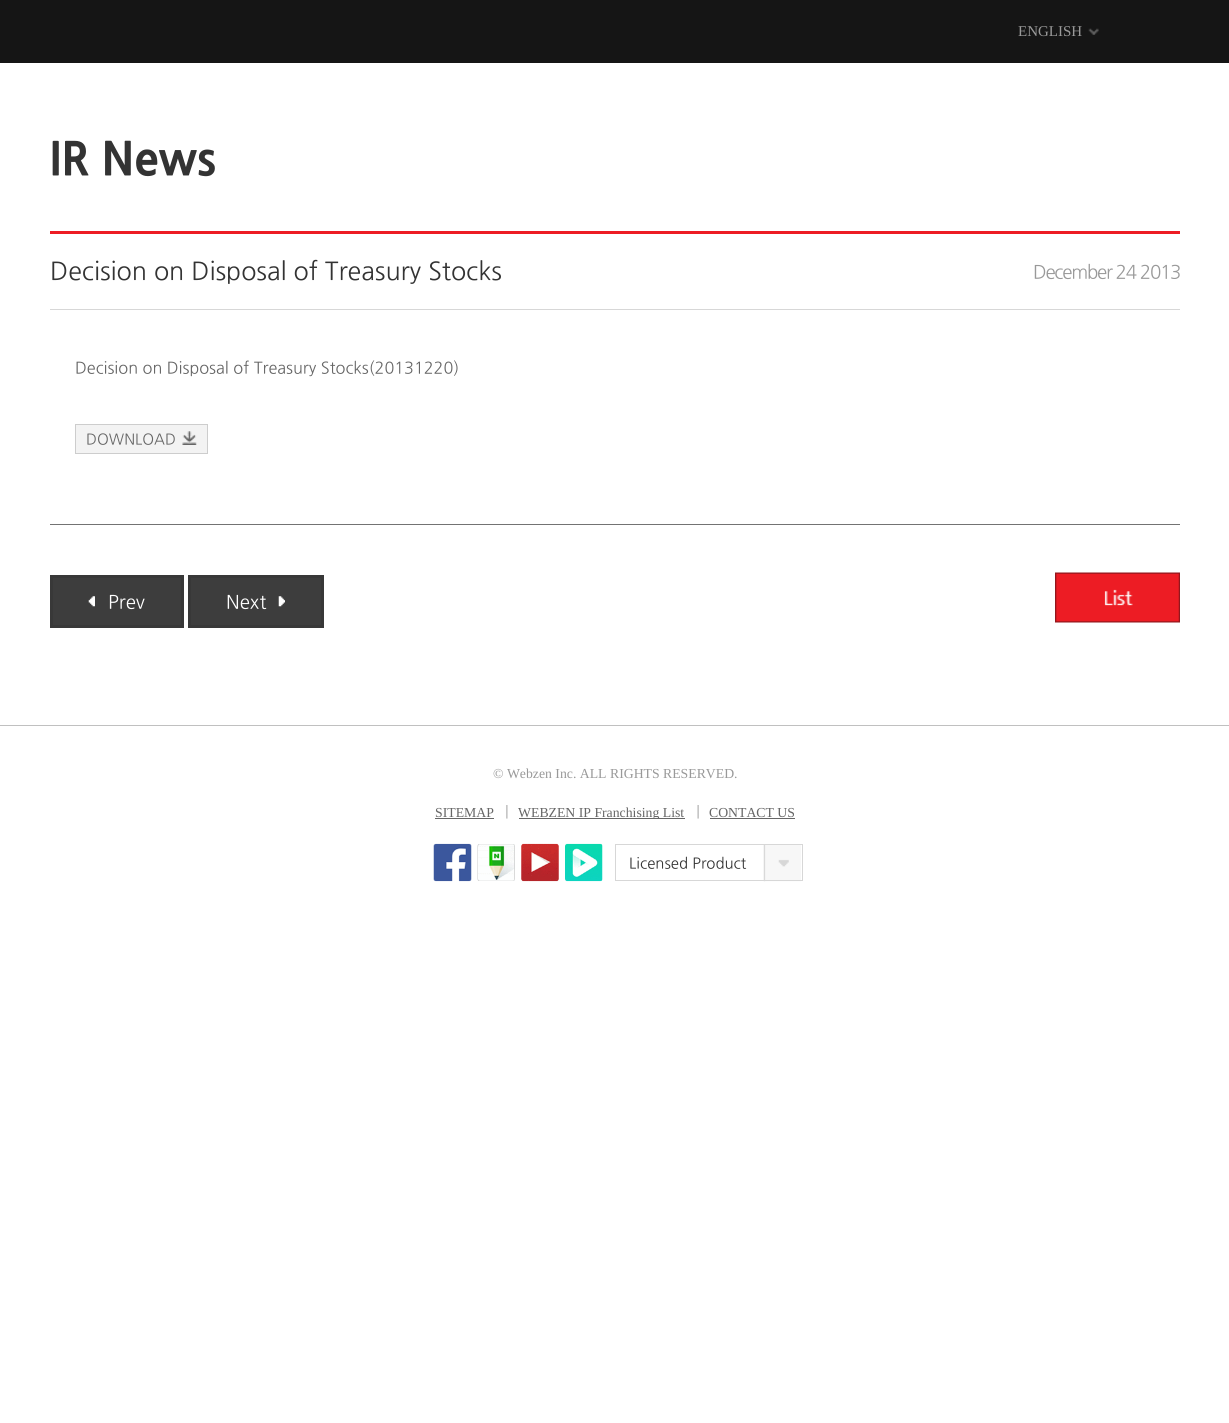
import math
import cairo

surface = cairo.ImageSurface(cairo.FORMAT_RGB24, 1229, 1423)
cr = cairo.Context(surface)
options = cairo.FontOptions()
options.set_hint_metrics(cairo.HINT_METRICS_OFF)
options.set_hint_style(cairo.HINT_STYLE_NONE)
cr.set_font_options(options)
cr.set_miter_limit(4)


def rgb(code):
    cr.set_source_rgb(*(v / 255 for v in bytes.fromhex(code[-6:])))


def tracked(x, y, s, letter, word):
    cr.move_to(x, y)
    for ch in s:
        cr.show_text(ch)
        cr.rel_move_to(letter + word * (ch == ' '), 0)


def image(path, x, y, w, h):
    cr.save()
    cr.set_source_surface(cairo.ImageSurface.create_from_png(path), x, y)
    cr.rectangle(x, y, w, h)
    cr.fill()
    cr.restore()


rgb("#ffffff")
cr.paint()
rgb("#151515")
cr.rectangle(0, 0, 1229, 63)
cr.fill()
image("img/1.png", 1088, 28, 11, 7)
for x, y, w, h, color in [
    (50, 231, 1130, 3, "#ed1c24"),
    (50, 524, 1130, 1, "#737373"),
    (50, 309, 1130, 1, "#d7d7d7"),
]:
    rgb(color)
    cr.rectangle(x, y, w, h)
    cr.fill()
rgb("#f3f3f3")
cr.rectangle(75.5, 424.5, 132, 29)
cr.fill_preserve()
rgb("#cdcdcd")
cr.set_line_width(1)
cr.stroke()
image("img/2.png", 182, 431, 15, 14)
rgb("#3d3d3d")
cr.rectangle(51.5, 576.5, 131, 50)
cr.fill_preserve()
rgb("#383838")
cr.set_line_width(3)
cr.stroke()
image("img/3.png", 88, 596, 7, 11)
rgb("#3d3d3d")
cr.rectangle(189.5, 576.5, 133, 50)
cr.fill_preserve()
rgb("#383838")
cr.stroke()
image("img/4.png", 278, 596, 7, 11)
image("img/5.png", 1055, 572, 125, 51)
rgb("#c0c0c0")
cr.rectangle(0, 725, 1229, 1)
cr.fill()
rgb("#666666")
cr.rectangle(435, 818, 59, 1)
cr.fill()
image("img/6.png", 506, 805, 2, 14)
cr.rectangle(519, 818, 166, 1)
cr.fill()
image("img/7.png", 697, 805, 2, 14)
cr.rectangle(710, 818, 85, 1)
cr.fill()
image("img/8.png", 433, 843, 39, 39)
image("img/9.png", 477, 844, 38, 37)
image("img/10.png", 521, 843, 38, 39)
image("img/11.png", 565, 843, 38, 39)
image("img/12.png", 763, 845, 38, 37)
cr.rectangle(615.5, 844.5, 187, 36)
rgb("#d7d7d7")
cr.set_line_width(1)
cr.stroke()
cr.select_font_face("Liberation Serif")
cr.set_font_size(15)
rgb("#999999")
cr.move_to(1018, 36)
cr.show_text("ENGLISH")
cr.select_font_face("NanumGothic ExtraBold")
cr.set_font_size(45)
rgb("#333333")
cr.move_to(50, 173)
cr.show_text("IR News")
cr.select_font_face("NanumGothic")
cr.set_font_size(25)
cr.move_to(50, 279)
cr.show_text("Decision on Disposal of Treasury Stocks")
cr.set_font_size(18.75)
rgb("#999999")
tracked(1033, 278, "December 24 2013", -1.25, 0)
cr.set_font_size(16.25)
rgb("#666666")
cr.move_to(75, 373)
cr.show_text("Decision on Disposal of Treasury Stocks(20131220)")
cr.set_font_size(15)
cr.move_to(86, 444)
cr.show_text("DOWNLOAD")
cr.set_font_size(18.75)
rgb("#ffffff")
cr.move_to(108, 608)
cr.show_text("Prev")
cr.move_to(226, 608)
cr.show_text("Next")
cr.select_font_face("Liberation Serif")
cr.set_font_size(13.75)
rgb("#999999")
cr.move_to(493, 778)
cr.show_text("© Webzen Inc. ALL RIGHTS RESERVED.")
rgb("#666666")
cr.move_to(435, 817)
cr.show_text("SITEMAP")
cr.save()
cr.rectangle(423, 804, 385, 15)
cr.clip()
cr.move_to(518, 817)
cr.show_text("WEBZEN IP Franchising List")
cr.restore()
cr.move_to(709, 817)
cr.show_text("CONTACT US")
cr.select_font_face("NanumGothic")
cr.set_font_size(15)
rgb("#333333")
cr.move_to(629, 868)
cr.show_text("Licensed Product")
surface.write_to_png("page.png")
